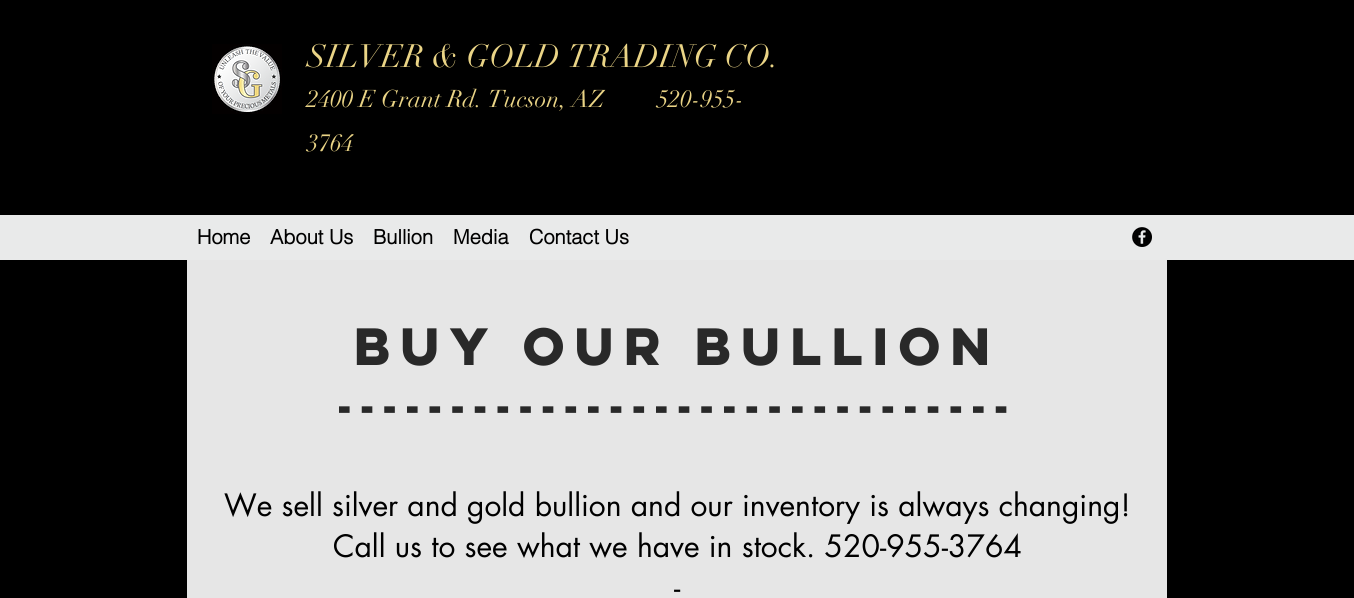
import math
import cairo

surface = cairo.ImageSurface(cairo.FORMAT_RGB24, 1354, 598)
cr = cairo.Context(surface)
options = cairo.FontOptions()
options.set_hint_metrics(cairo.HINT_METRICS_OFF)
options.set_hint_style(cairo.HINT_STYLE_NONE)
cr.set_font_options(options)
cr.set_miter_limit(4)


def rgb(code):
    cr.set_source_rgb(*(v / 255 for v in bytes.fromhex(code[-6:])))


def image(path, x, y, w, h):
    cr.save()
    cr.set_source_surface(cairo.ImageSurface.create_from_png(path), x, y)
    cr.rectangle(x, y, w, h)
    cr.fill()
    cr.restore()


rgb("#000000")
cr.paint()
image("img/1.png", 212, 44, 70, 70)
rgb("#e9eaea")
cr.rectangle(0, 215, 1354, 45)
cr.fill()
image("img/2.png", 1132, 227, 20, 20)
rgb("#e6e6e6")
cr.rectangle(187, 260, 980, 338)
cr.fill()
cr.select_font_face("didot")
cr.set_font_size(32)
rgb("#ead486")
cr.move_to(307, 67)
cr.show_text("SILVER & GOLD TRADING CO.")
cr.set_font_size(24)
for x, y, s in [
    (307, 107, "2400 E Grant Rd. Tucson, AZ"),
    (657, 107, "520-955-"),
    (307, 151, "3764"),
]:
    cr.move_to(x, y)
    cr.show_text(s)
cr.select_font_face("helvetica", cairo.FONT_SLANT_NORMAL, cairo.FONT_WEIGHT_BOLD)
cr.set_font_size(20)
rgb("#000000")
for x, y, s in [
    (197, 244, "Home"),
    (270, 244, "About Us"),
    (373, 244, "Bullion"),
    (453, 244, "Media"),
    (529, 244, "Contact Us"),
]:
    cr.move_to(x, y)
    cr.show_text(s)
cr.select_font_face("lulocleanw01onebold", cairo.FONT_SLANT_NORMAL, cairo.FONT_WEIGHT_BOLD)
cr.set_font_size(47)
rgb("#292929")
cr.move_to(354, 365)
cr.show_text("BUY OUR BULLION")
cr.set_font_size(35)
cr.move_to(337, 421)
cr.show_text("------------------------------")
cr.select_font_face("futura")
cr.set_font_size(30)
rgb("#000000")
for x, y, s in [
    (224, 516, "We sell silver and gold bullion and our inventory is always changing!"),
    (333, 557, "Call us to see what we have in stock. 520-955-3764"),
    (674, 598, "-"),
]:
    cr.move_to(x, y)
    cr.show_text(s)
surface.write_to_png("page.png")
